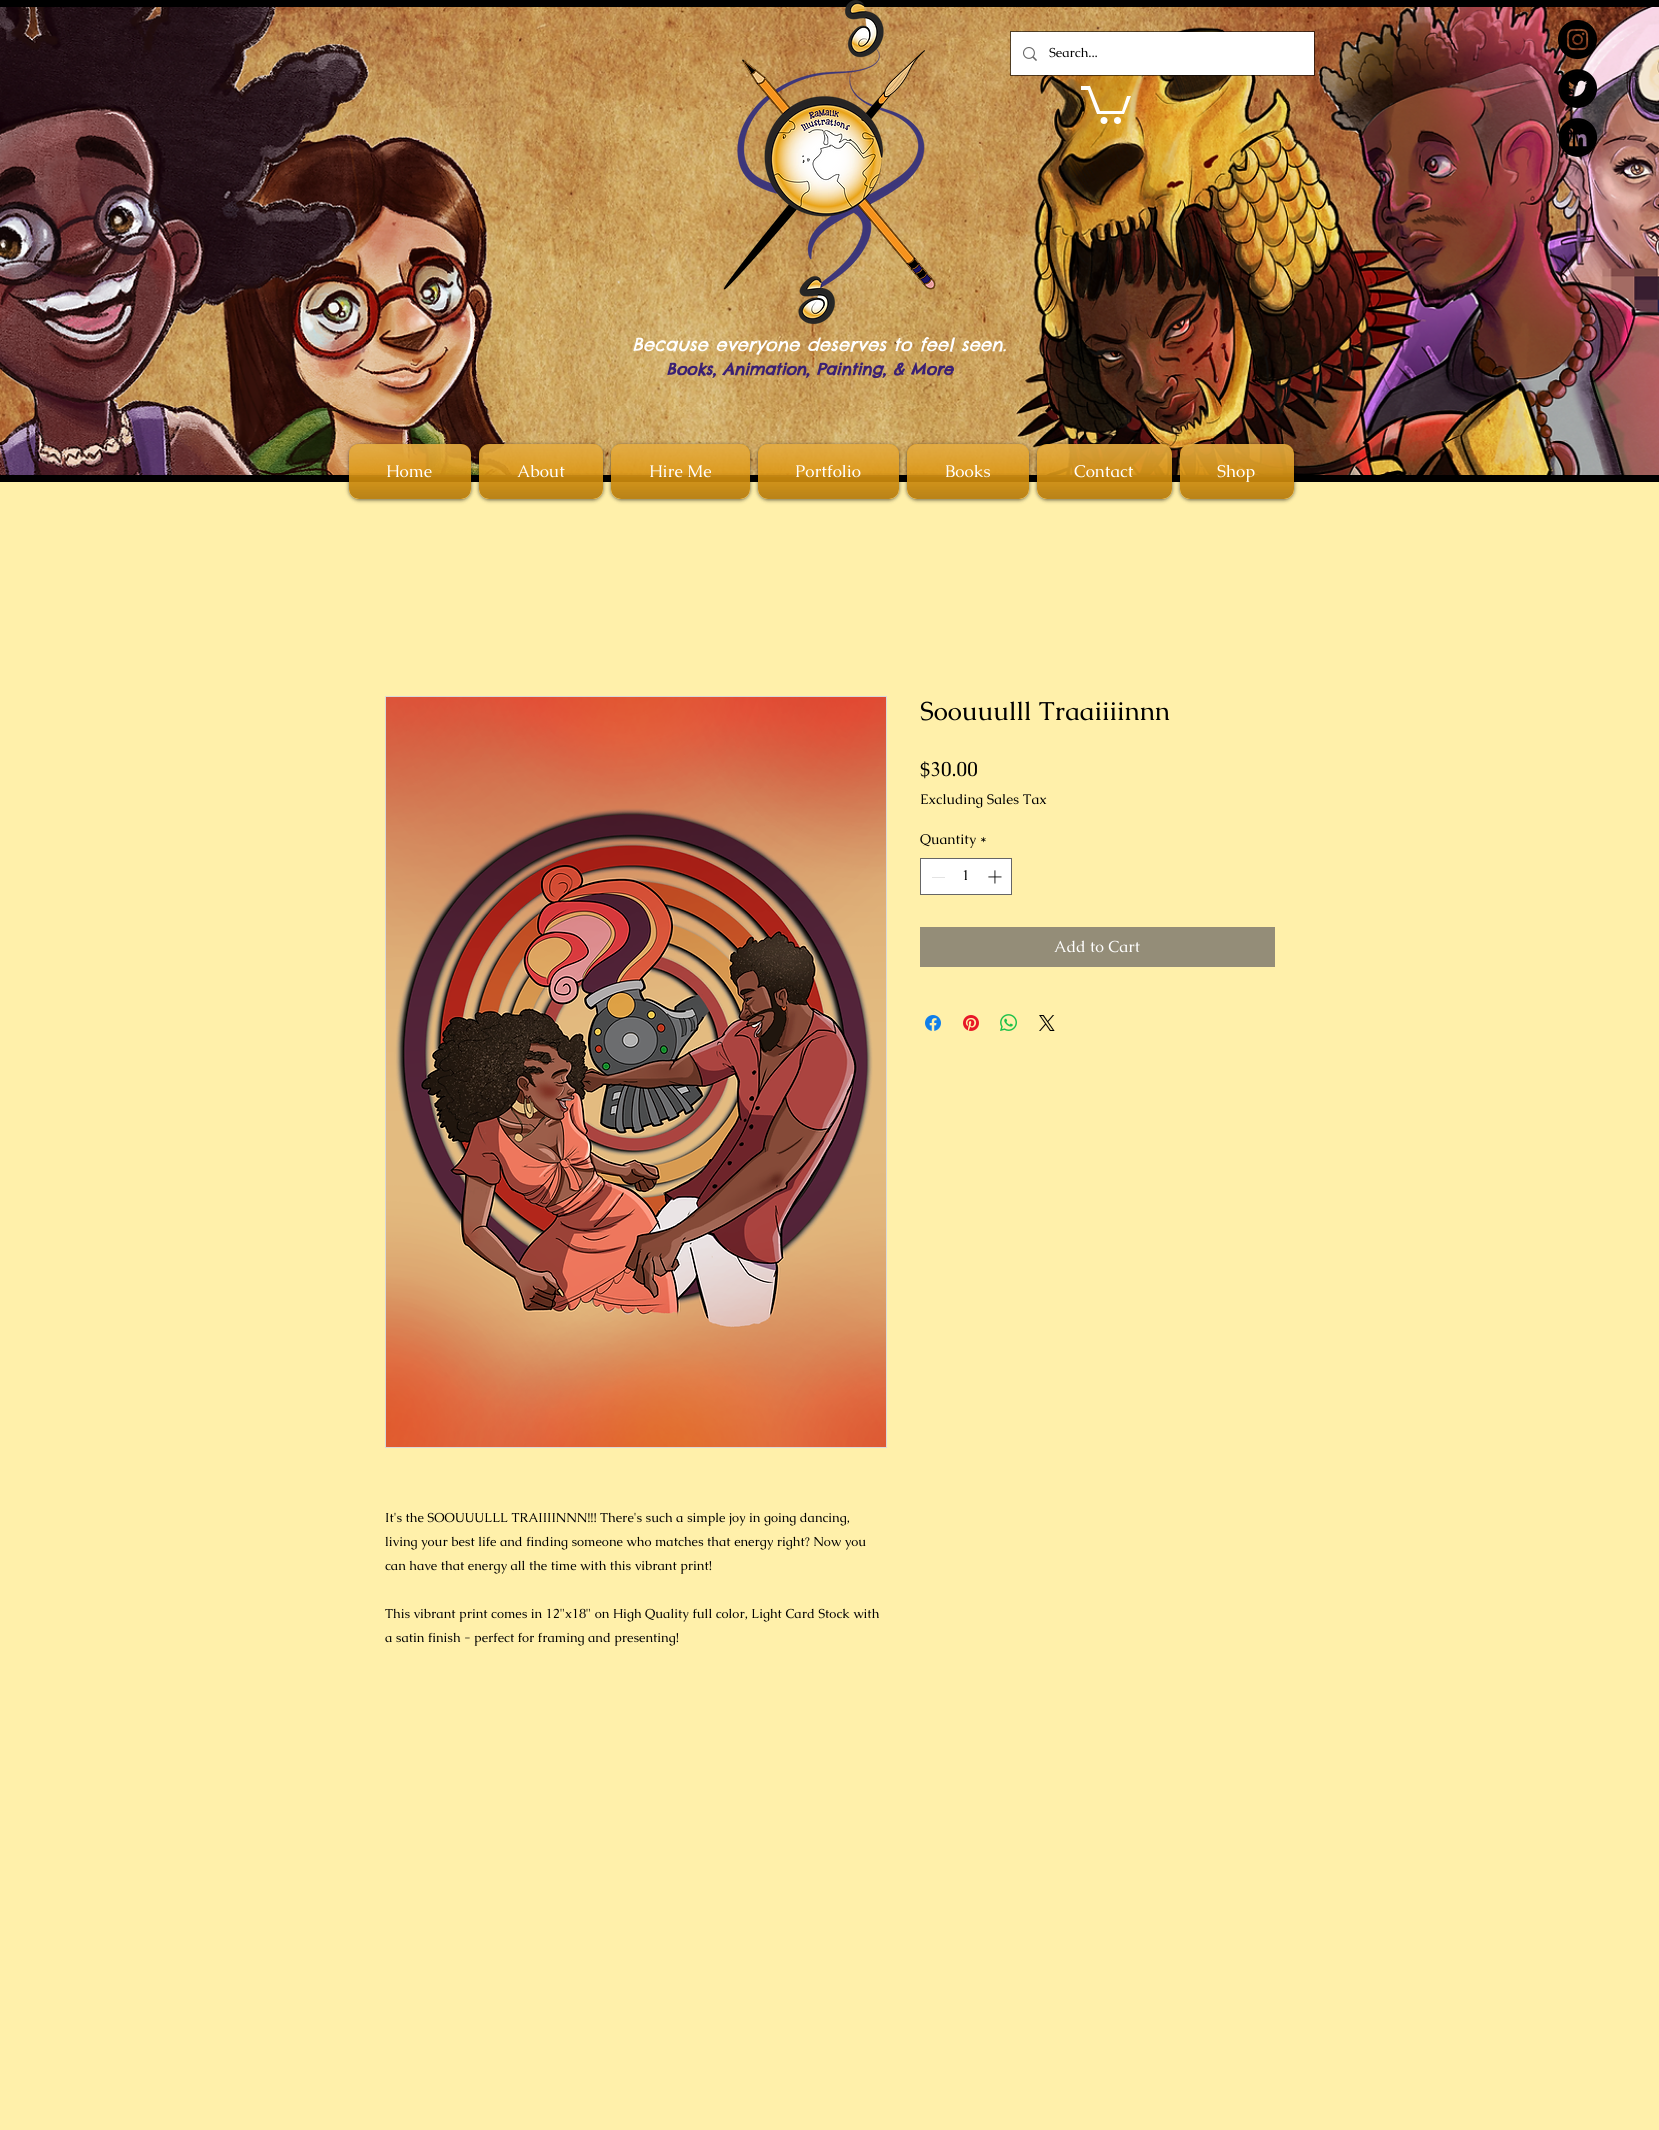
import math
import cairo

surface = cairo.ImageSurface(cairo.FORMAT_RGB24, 1659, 2130)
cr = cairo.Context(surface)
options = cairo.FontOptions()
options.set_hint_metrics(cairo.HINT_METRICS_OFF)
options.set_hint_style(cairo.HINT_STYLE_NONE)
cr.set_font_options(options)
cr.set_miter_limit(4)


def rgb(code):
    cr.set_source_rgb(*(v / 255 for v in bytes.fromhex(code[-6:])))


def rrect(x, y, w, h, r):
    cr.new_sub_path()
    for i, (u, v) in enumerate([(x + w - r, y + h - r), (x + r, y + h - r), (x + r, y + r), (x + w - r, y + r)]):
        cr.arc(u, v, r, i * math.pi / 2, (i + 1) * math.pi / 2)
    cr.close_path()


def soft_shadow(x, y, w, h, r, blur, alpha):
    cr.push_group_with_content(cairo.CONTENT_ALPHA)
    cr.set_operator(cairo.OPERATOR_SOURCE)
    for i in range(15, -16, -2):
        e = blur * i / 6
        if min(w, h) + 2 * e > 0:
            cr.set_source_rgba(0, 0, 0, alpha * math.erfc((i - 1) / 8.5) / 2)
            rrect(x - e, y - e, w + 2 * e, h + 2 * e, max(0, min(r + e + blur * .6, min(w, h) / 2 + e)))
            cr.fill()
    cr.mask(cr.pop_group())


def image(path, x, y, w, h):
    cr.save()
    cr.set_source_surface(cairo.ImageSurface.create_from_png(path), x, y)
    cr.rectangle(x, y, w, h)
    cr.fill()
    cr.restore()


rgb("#fff0aa")
cr.paint()
rgb("#000000")
cr.rectangle(0, 0, 1659, 482)
cr.fill()
image("img/1.png", 0, 7, 1659, 468)
image("img/2.png", 723, 0, 213, 324)
cr.rectangle(1010.5, 31.5, 304, 44)
cr.set_source_rgba(0, 0, 0, 0.6)
cr.set_line_width(1)
cr.stroke()
rgb("#ffffff")
cr.rectangle(1011, 32, 303, 43)
cr.fill()
image("img/3.png", 1023, 47, 14, 14)
cr.new_path()
cr.move_to(1131, 96)
cr.line_to(1124, 114)
cr.line_to(1097, 114)
cr.line_to(1088, 90)
cr.line_to(1081, 90)
cr.line_to(1081, 86)
cr.line_to(1090, 86)
cr.line_to(1100, 111)
cr.line_to(1122, 111)
cr.line_to(1127, 96)
cr.fill()
cr.arc(1117.5, 120.5, 3.5, 0, 2 * math.pi)
cr.fill()
cr.arc(1104, 120.5, 3.5, 0, 2 * math.pi)
cr.fill()
image("img/4.png", 1558, 20, 39, 39)
image("img/5.png", 1558, 69, 39, 39)
image("img/6.png", 1558, 118, 39, 39)
cr.save()
cr.set_fill_rule(cairo.FILL_RULE_EVEN_ODD)
cr.new_path()
cr.move_to(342, 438)
cr.line_to(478, 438)
cr.line_to(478, 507)
cr.line_to(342, 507)
cr.close_path()
cr.move_to(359, 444)
cr.line_to(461, 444)
cr.curve_to(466.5, 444, 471, 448.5, 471, 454)
cr.line_to(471, 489)
cr.curve_to(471, 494.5, 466.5, 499, 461, 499)
cr.line_to(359, 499)
cr.curve_to(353.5, 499, 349, 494.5, 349, 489)
cr.line_to(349, 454)
cr.curve_to(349, 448.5, 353.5, 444, 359, 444)
cr.close_path()
cr.clip()
rgb("#000000")
soft_shadow(349, 445, 122, 55, 10, 2, 0.6)
cr.restore()
cr.set_source_rgba(0.859, 0.58, 0.059, 0.91)
rrect(349, 444, 122, 55, 10)
cr.fill()
image("img/7.png", 349, 444, 122, 33)
image("img/8.png", 349, 473, 122, 26)
cr.save()
cr.set_fill_rule(cairo.FILL_RULE_EVEN_ODD)
cr.new_path()
cr.move_to(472, 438)
cr.line_to(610, 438)
cr.line_to(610, 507)
cr.line_to(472, 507)
cr.close_path()
cr.move_to(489, 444)
cr.line_to(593, 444)
cr.curve_to(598.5, 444, 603, 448.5, 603, 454)
cr.line_to(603, 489)
cr.curve_to(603, 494.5, 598.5, 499, 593, 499)
cr.line_to(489, 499)
cr.curve_to(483.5, 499, 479, 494.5, 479, 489)
cr.line_to(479, 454)
cr.curve_to(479, 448.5, 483.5, 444, 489, 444)
cr.close_path()
cr.clip()
rgb("#000000")
soft_shadow(479, 445, 124, 55, 10, 2, 0.6)
cr.restore()
rrect(479, 444, 124, 55, 10)
cr.fill()
image("img/9.png", 479, 444, 124, 33)
image("img/10.png", 479, 473, 124, 26)
cr.save()
cr.set_fill_rule(cairo.FILL_RULE_EVEN_ODD)
cr.new_path()
cr.move_to(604, 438)
cr.line_to(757, 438)
cr.line_to(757, 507)
cr.line_to(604, 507)
cr.close_path()
cr.move_to(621, 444)
cr.line_to(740, 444)
cr.curve_to(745.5, 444, 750, 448.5, 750, 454)
cr.line_to(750, 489)
cr.curve_to(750, 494.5, 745.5, 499, 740, 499)
cr.line_to(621, 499)
cr.curve_to(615.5, 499, 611, 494.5, 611, 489)
cr.line_to(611, 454)
cr.curve_to(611, 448.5, 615.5, 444, 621, 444)
cr.close_path()
cr.clip()
rgb("#000000")
soft_shadow(611, 445, 139, 55, 10, 2, 0.6)
cr.restore()
rrect(611, 444, 139, 55, 10)
cr.fill()
image("img/11.png", 611, 444, 139, 33)
image("img/12.png", 611, 473, 139, 26)
cr.save()
cr.set_fill_rule(cairo.FILL_RULE_EVEN_ODD)
cr.new_path()
cr.move_to(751, 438)
cr.line_to(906, 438)
cr.line_to(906, 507)
cr.line_to(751, 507)
cr.close_path()
cr.move_to(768, 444)
cr.line_to(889, 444)
cr.curve_to(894.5, 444, 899, 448.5, 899, 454)
cr.line_to(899, 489)
cr.curve_to(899, 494.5, 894.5, 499, 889, 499)
cr.line_to(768, 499)
cr.curve_to(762.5, 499, 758, 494.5, 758, 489)
cr.line_to(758, 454)
cr.curve_to(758, 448.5, 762.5, 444, 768, 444)
cr.close_path()
cr.clip()
rgb("#000000")
soft_shadow(758, 445, 141, 55, 10, 2, 0.6)
cr.restore()
rrect(758, 444, 141, 55, 10)
cr.fill()
image("img/13.png", 758, 444, 141, 33)
image("img/14.png", 758, 473, 141, 26)
cr.save()
cr.set_fill_rule(cairo.FILL_RULE_EVEN_ODD)
cr.new_path()
cr.move_to(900, 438)
cr.line_to(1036, 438)
cr.line_to(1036, 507)
cr.line_to(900, 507)
cr.close_path()
cr.move_to(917, 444)
cr.line_to(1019, 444)
cr.curve_to(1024.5, 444, 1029, 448.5, 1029, 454)
cr.line_to(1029, 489)
cr.curve_to(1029, 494.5, 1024.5, 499, 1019, 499)
cr.line_to(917, 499)
cr.curve_to(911.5, 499, 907, 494.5, 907, 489)
cr.line_to(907, 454)
cr.curve_to(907, 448.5, 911.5, 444, 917, 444)
cr.close_path()
cr.clip()
rgb("#000000")
soft_shadow(907, 445, 122, 55, 10, 2, 0.6)
cr.restore()
rrect(907, 444, 122, 55, 10)
cr.fill()
image("img/15.png", 907, 444, 122, 33)
image("img/16.png", 907, 473, 122, 26)
cr.save()
cr.set_fill_rule(cairo.FILL_RULE_EVEN_ODD)
cr.new_path()
cr.move_to(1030, 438)
cr.line_to(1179, 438)
cr.line_to(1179, 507)
cr.line_to(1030, 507)
cr.close_path()
cr.move_to(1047, 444)
cr.line_to(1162, 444)
cr.curve_to(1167.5, 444, 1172, 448.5, 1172, 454)
cr.line_to(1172, 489)
cr.curve_to(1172, 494.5, 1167.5, 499, 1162, 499)
cr.line_to(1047, 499)
cr.curve_to(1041.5, 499, 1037, 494.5, 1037, 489)
cr.line_to(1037, 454)
cr.curve_to(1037, 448.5, 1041.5, 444, 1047, 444)
cr.close_path()
cr.clip()
rgb("#000000")
soft_shadow(1037, 445, 135, 55, 10, 2, 0.6)
cr.restore()
rrect(1037, 444, 135, 55, 10)
cr.fill()
image("img/17.png", 1037, 444, 135, 33)
image("img/18.png", 1037, 473, 135, 26)
cr.save()
cr.set_fill_rule(cairo.FILL_RULE_EVEN_ODD)
cr.new_path()
cr.move_to(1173, 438)
cr.line_to(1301, 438)
cr.line_to(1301, 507)
cr.line_to(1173, 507)
cr.close_path()
cr.move_to(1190, 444)
cr.line_to(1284, 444)
cr.curve_to(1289.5, 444, 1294, 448.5, 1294, 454)
cr.line_to(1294, 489)
cr.curve_to(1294, 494.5, 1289.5, 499, 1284, 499)
cr.line_to(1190, 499)
cr.curve_to(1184.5, 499, 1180, 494.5, 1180, 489)
cr.line_to(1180, 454)
cr.curve_to(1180, 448.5, 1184.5, 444, 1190, 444)
cr.close_path()
cr.clip()
rgb("#000000")
soft_shadow(1180, 445, 114, 55, 10, 2, 0.6)
cr.restore()
rrect(1180, 444, 114, 55, 10)
cr.fill()
image("img/19.png", 1180, 444, 114, 33)
image("img/20.png", 1180, 473, 114, 26)
rgb("#ffffff")
cr.rectangle(920.5, 858.5, 91, 36)
cr.fill_preserve()
rgb("#666666")
cr.stroke()
rgb("#e3e3e3")
cr.rectangle(932, 877, 13, 1)
cr.fill()
image("img/21.png", 988, 870, 14, 14)
rgb("#948d78")
cr.rectangle(920, 927, 355, 40)
cr.fill()
image("img/22.png", 925, 1015, 16, 16)
image("img/23.png", 963, 1015, 16, 16)
image("img/24.png", 1000, 1014, 17, 17)
image("img/25.png", 1039, 1015, 16, 16)
cr.rectangle(385.5, 696.5, 501, 751)
rgb("#d9d9d9")
cr.stroke()
image("img/26.png", 386, 697, 500, 750)
cr.select_font_face("Caudex")
cr.set_font_size(13)
rgb("#000000")
cr.move_to(1049, 57)
cr.show_text("Search...")
cr.select_font_face("Chelsea Market", cairo.FONT_SLANT_ITALIC)
cr.set_font_size(18)
rgb("#ffffff")
cr.move_to(632, 351)
cr.show_text("Because everyone deserves to feel seen.")
cr.select_font_face("Chelsea Market", cairo.FONT_SLANT_ITALIC, cairo.FONT_WEIGHT_BOLD)
cr.set_font_size(16)
rgb("#3a1f73")
cr.move_to(666, 375)
cr.show_text("Books, Animation, Painting, & More")
cr.select_font_face("Caudex")
cr.set_font_size(17)
rgb("#ffffff")
for x, y, s in [
    (386, 477, "Home"),
    (517, 477, "About"),
    (649, 477, "Hire Me"),
    (795, 477, "Portfolio"),
    (945, 477, "Books"),
    (1074, 477, "Contact"),
    (1217, 477, "Shop"),
]:
    cr.move_to(x, y)
    cr.show_text(s)
cr.set_font_size(26)
rgb("#000000")
cr.move_to(920, 720)
cr.show_text("Soouuulll Traaiiiinnn")
cr.set_font_size(20)
cr.move_to(920, 776)
cr.show_text("$30.00")
cr.set_font_size(14)
for x, y, s in [
    (920, 804, "Excluding Sales Tax"),
    (920, 844, "Quantity *"),
    (962, 880, "1"),
]:
    cr.move_to(x, y)
    cr.show_text(s)
cr.set_font_size(16)
rgb("#ffffff")
cr.move_to(1054, 952)
cr.show_text("Add to Cart")
cr.set_font_size(13)
rgb("#000000")
for x, y, s in [
    (385, 1522, "It's the SOOUUULLL TRAIIIINNN!!! There's such a simple joy in going dancing,"),
    (385, 1546, "living your best life and finding someone who matches that energy right? Now you"),
    (385, 1570, "can have that energy all the time with this vibrant print!"),
    (385, 1618, "This vibrant print comes in 12\"x18\" on High Quality full color, Light Card Stock with"),
    (385, 1642, "a satin finish - perfect for framing and presenting!"),
]:
    cr.move_to(x, y)
    cr.show_text(s)
surface.write_to_png("page.png")
